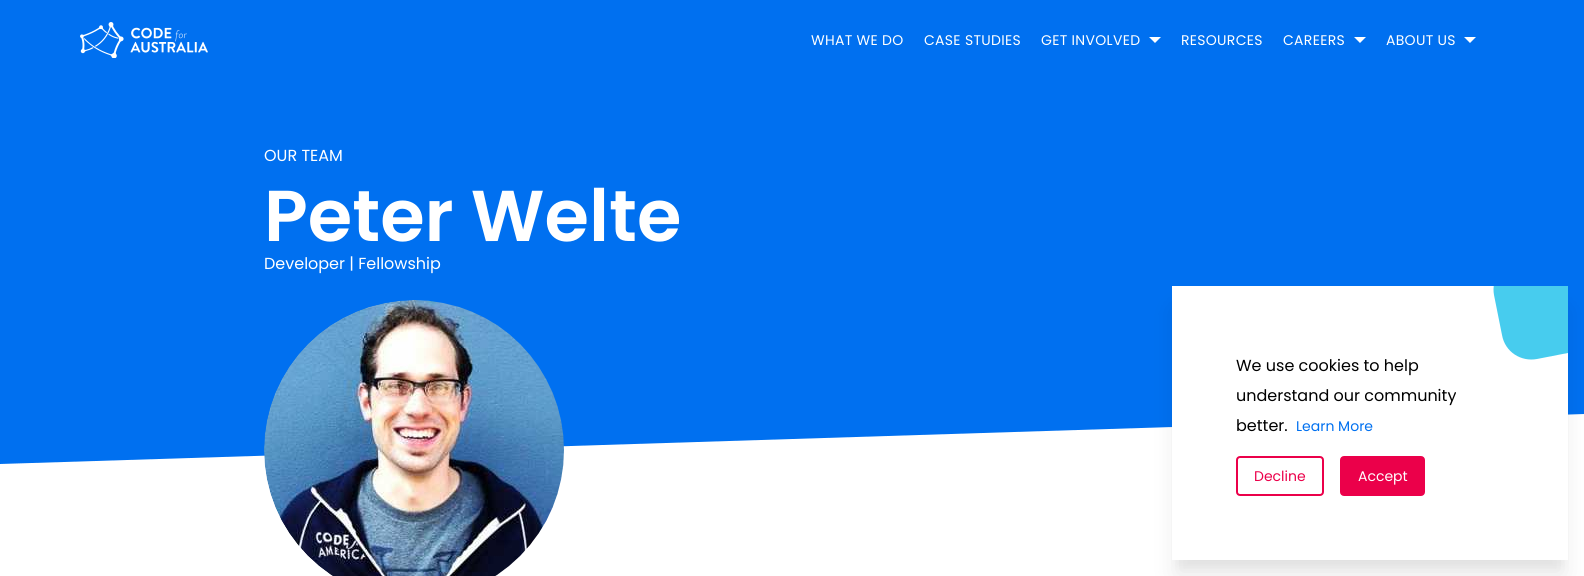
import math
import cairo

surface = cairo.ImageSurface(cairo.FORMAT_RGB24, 1584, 576)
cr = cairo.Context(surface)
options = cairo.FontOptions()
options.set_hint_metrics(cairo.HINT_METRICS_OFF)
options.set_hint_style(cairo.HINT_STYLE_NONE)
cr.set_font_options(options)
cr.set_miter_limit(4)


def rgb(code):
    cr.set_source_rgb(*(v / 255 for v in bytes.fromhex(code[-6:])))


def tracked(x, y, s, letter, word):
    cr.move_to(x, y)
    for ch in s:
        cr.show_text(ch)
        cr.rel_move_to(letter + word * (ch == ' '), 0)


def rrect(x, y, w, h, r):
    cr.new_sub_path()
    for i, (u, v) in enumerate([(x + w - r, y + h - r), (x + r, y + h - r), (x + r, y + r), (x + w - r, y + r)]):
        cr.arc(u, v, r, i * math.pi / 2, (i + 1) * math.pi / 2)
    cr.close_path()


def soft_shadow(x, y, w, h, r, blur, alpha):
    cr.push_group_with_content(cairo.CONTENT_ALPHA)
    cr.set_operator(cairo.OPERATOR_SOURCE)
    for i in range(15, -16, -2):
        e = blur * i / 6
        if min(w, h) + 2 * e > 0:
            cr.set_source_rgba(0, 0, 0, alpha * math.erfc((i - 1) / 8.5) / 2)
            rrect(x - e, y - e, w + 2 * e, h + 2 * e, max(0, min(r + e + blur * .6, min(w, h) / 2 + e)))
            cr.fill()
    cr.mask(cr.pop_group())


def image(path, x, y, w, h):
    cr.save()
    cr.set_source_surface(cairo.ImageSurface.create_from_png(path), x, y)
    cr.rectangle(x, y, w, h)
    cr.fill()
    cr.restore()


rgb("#ffffff")
cr.paint()
rgb("#0070f0")
cr.rectangle(0, 0, 1584, 80)
cr.fill()
image("img/1.png", 80, 22, 128, 36)
rgb("#ffffff")
cr.new_path()
cr.move_to(1149, 37)
cr.line_to(1155, 43)
cr.line_to(1161, 37)
cr.close_path()
cr.fill()
cr.new_path()
cr.move_to(1354, 37)
cr.line_to(1360, 43)
cr.line_to(1366, 37)
cr.close_path()
cr.fill()
cr.new_path()
cr.move_to(1464, 37)
cr.line_to(1470, 43)
cr.line_to(1476, 37)
cr.close_path()
cr.fill()
rgb("#0070f0")
cr.new_path()
cr.move_to(0, 80)
cr.line_to(0, 464)
cr.line_to(1584, 414)
cr.line_to(1584, 80)
cr.close_path()
cr.fill()
image("img/2.png", 264, 300, 300, 276)
rgb("#000000")
soft_shadow(1177, 301, 386, 264, 0, 5, 0.04)
soft_shadow(1177, 311, 386, 264, 0, 12.5, 0.1)
rgb("#ffffff")
cr.rectangle(1172, 286, 396, 274)
cr.fill()
cr.save()
cr.rectangle(1488, 286, 80, 79)
cr.clip()
rgb("#47ccee")
cr.new_path()
cr.move_to(1494, 295)
cr.curve_to(1491, 279, 1502, 263, 1518, 260)
cr.line_to(1558, 252)
cr.curve_to(1575, 249, 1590, 260, 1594, 276)
cr.line_to(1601, 316)
cr.curve_to(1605, 332, 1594, 348, 1578, 351)
cr.line_to(1537, 359)
cr.curve_to(1521, 362, 1505, 352, 1502, 335)
cr.close_path()
cr.fill()
cr.restore()
rrect(1237, 457, 86, 38, 3)
rgb("#eb004a")
cr.stroke()
rrect(1341, 457, 83, 38, 3)
cr.fill_preserve()
cr.stroke()
cr.select_font_face("Poppins")
cr.set_font_size(14)
rgb("#ffffff")
for x, y, s in [
    (811, 45, "WHAT WE DO"),
    (924, 45, "CASE STUDIES"),
    (1041, 45, "GET INVOLVED"),
    (1181, 45, "RESOURCES"),
    (1283, 45, "CAREERS"),
    (1386, 45, "ABOUT US"),
]:
    tracked(x, y, s, 0.3, 0)
cr.set_font_size(16)
cr.move_to(264, 161)
cr.show_text("OUR TEAM")
cr.select_font_face("Poppins SemiBold")
cr.set_font_size(72)
cr.move_to(264, 241)
cr.show_text("Peter Welte")
cr.select_font_face("Poppins")
cr.set_font_size(16)
cr.move_to(264, 269)
cr.show_text("Developer | Fellowship")
rgb("#000000")
for x, y, s in [
    (1236, 371, "We use cookies to help"),
    (1236, 401, "understand our community"),
    (1236, 431, "better."),
]:
    cr.move_to(x, y)
    cr.show_text(s)
cr.set_font_size(14)
rgb("#0070f0")
cr.move_to(1296, 431)
cr.show_text("Learn More")
rgb("#eb004a")
cr.move_to(1254, 481)
cr.show_text("Decline")
rgb("#ffffff")
cr.move_to(1358, 481)
cr.show_text("Accept")
surface.write_to_png("page.png")
